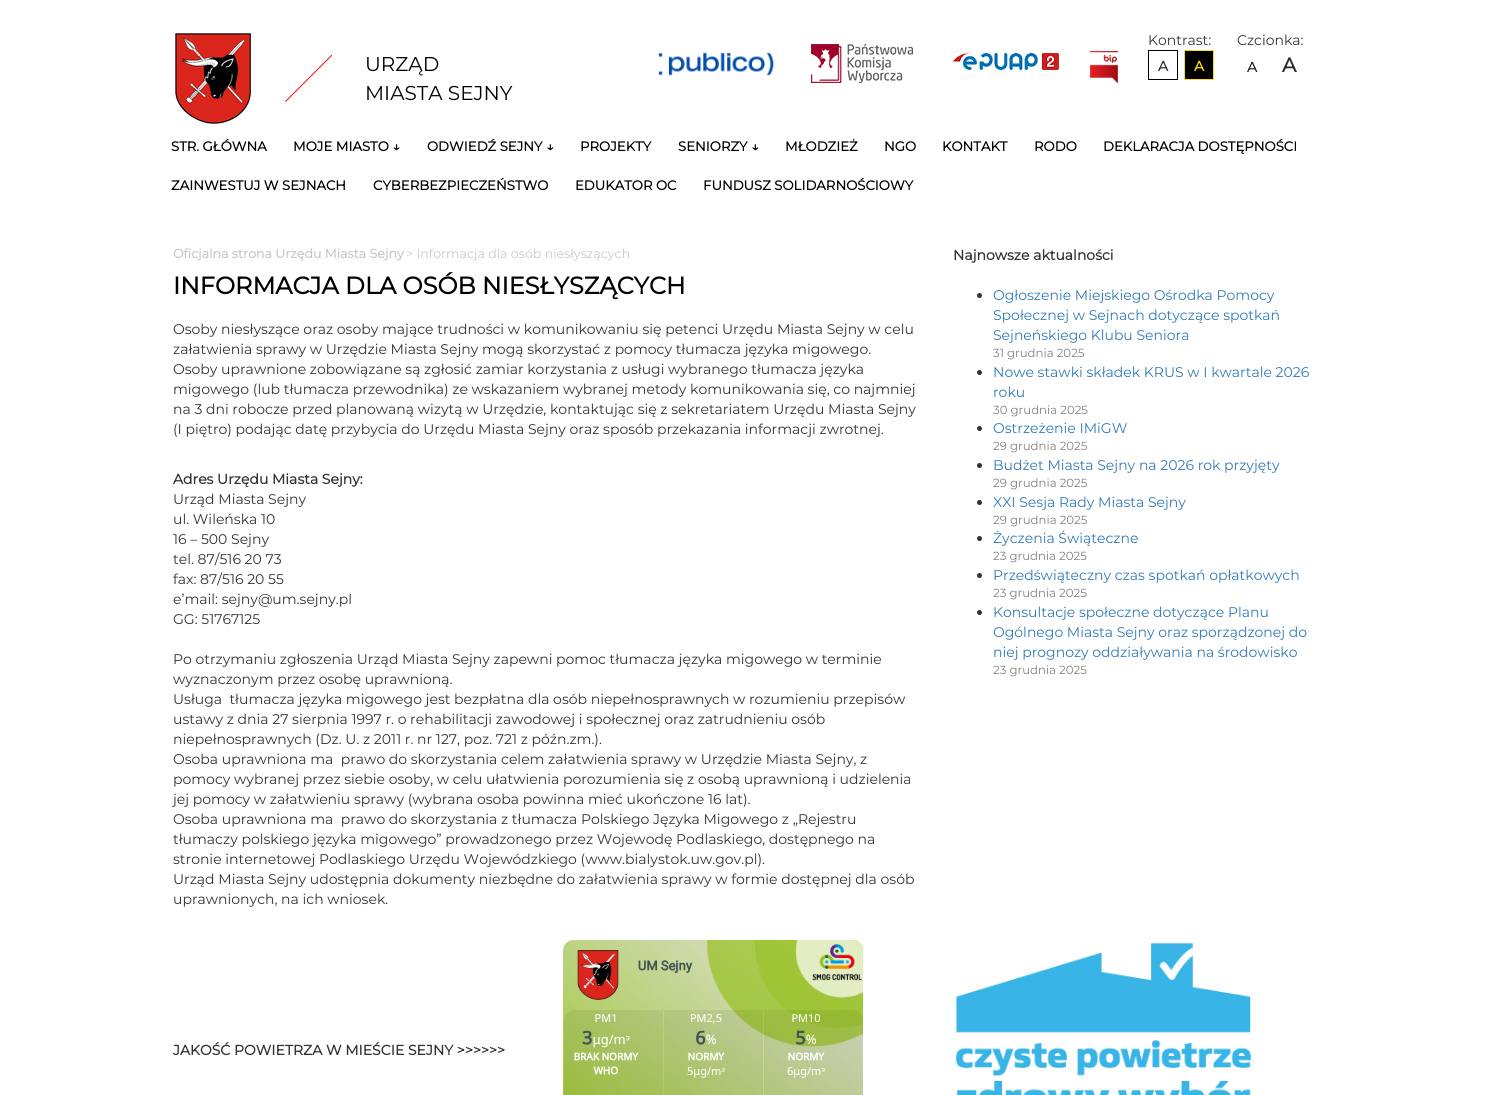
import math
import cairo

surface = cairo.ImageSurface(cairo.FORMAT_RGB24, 1485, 1095)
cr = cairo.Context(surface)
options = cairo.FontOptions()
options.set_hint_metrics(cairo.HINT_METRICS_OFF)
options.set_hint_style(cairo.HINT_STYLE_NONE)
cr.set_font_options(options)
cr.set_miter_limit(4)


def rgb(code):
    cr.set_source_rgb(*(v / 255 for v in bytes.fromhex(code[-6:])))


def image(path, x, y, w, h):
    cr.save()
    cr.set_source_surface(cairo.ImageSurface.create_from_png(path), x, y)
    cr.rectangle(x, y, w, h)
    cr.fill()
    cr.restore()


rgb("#ffffff")
cr.paint()
image("img/1.png", 658, 52, 116, 24)
image("img/2.png", 811, 44, 102, 39)
image("img/3.png", 953, 53, 106, 17)
image("img/4.png", 1090, 51, 28, 32)
cr.rectangle(1148.5, 50.5, 29, 29)
rgb("#000000")
cr.set_line_width(1)
cr.stroke()
cr.rectangle(1184.5, 50.5, 29, 29)
cr.fill_preserve()
rgb("#ffde00")
cr.stroke()
image("img/5.png", 175, 33, 76, 91)
image("img/6.png", 285, 55, 47, 47)
rgb("#333333")
cr.arc(979.5, 295.5, 2.5, 0, 2 * math.pi)
cr.fill()
cr.arc(979.5, 372.5, 2.5, 0, 2 * math.pi)
cr.fill()
cr.arc(979.5, 428.5, 2.5, 0, 2 * math.pi)
cr.fill()
cr.arc(979.5, 465.5, 2.5, 0, 2 * math.pi)
cr.fill()
cr.arc(979.5, 502.5, 2.5, 0, 2 * math.pi)
cr.fill()
cr.arc(979.5, 538.5, 2.5, 0, 2 * math.pi)
cr.fill()
cr.arc(979.5, 575.5, 2.5, 0, 2 * math.pi)
cr.fill()
cr.arc(979.5, 612.5, 2.5, 0, 2 * math.pi)
cr.fill()
image("img/7.png", 563, 940, 300, 155)
image("img/8.png", 955, 942, 297, 153)
cr.select_font_face("Montserrat Thin")
cr.set_font_size(14)
cr.move_to(1148, 45)
cr.show_text("Kontrast:")
cr.select_font_face("Montserrat", cairo.FONT_SLANT_NORMAL, cairo.FONT_WEIGHT_BOLD)
cr.move_to(1158, 71)
cr.show_text("A")
rgb("#ffde00")
cr.move_to(1194, 71)
cr.show_text("A")
cr.select_font_face("Montserrat Thin")
rgb("#333333")
cr.move_to(1237, 45)
cr.show_text("Czcionka:")
cr.select_font_face("Montserrat", cairo.FONT_SLANT_NORMAL, cairo.FONT_WEIGHT_BOLD)
rgb("#2b2b2b")
cr.move_to(1247, 72)
cr.show_text("A")
cr.set_font_size(20)
cr.move_to(1282, 72)
cr.show_text("A")
cr.select_font_face("Montserrat Thin")
rgb("#000000")
cr.move_to(365, 71)
cr.show_text("URZĄD")
cr.move_to(365, 100)
cr.show_text("MIASTA SEJNY")
cr.select_font_face("Montserrat", cairo.FONT_SLANT_NORMAL, cairo.FONT_WEIGHT_BOLD)
cr.set_font_size(13.25)
for x, y, s in [
    (171, 151, "STR. GŁÓWNA"),
    (293, 151, "MOJE MIASTO ↓"),
    (427, 151, "ODWIEDŹ SEJNY ↓"),
    (580, 151, "PROJEKTY"),
    (678, 151, "SENIORZY ↓"),
    (785, 151, "MŁODZIEŻ"),
    (884, 151, "NGO"),
    (942, 151, "KONTAKT"),
    (1034, 151, "RODO"),
    (1103, 151, "DEKLARACJA DOSTĘPNOŚCI"),
    (171, 190, "ZAINWESTUJ W SEJNACH"),
    (373, 190, "CYBERBEZPIECZEŃSTWO"),
    (575, 190, "EDUKATOR OC"),
    (703, 190, "FUNDUSZ SOLIDARNOŚCIOWY"),
]:
    cr.move_to(x, y)
    cr.show_text(s)
cr.set_font_size(12.6)
rgb("#c9c9c9")
cr.move_to(173, 258)
cr.show_text("Oficjalna strona Urzędu Miasta Sejny")
cr.select_font_face("Montserrat Thin")
cr.move_to(406, 258)
cr.show_text("> Informacja dla osób niesłyszących")
cr.select_font_face("Montserrat", cairo.FONT_SLANT_NORMAL, cairo.FONT_WEIGHT_BOLD)
cr.set_font_size(24)
rgb("#000000")
cr.move_to(173, 294)
cr.show_text("INFORMACJA DLA OSÓB NIESŁYSZĄCYCH")
cr.select_font_face("Montserrat Thin")
cr.set_font_size(14)
rgb("#333333")
for x, y, s in [
    (173, 334, "Osoby niesłyszące oraz osoby mające trudności w komunikowaniu się petenci Urzędu Miasta Sejny w celu"),
    (173, 354, "załatwienia sprawy w Urzędzie Miasta Sejny mogą skorzystać z pomocy tłumacza języka migowego."),
    (173, 374, "Osoby uprawnione zobowiązane są zgłosić zamiar korzystania z usługi wybranego tłumacza języka"),
    (173, 394, "migowego (lub tłumacza przewodnika) ze wskazaniem wybranej metody komunikowania się, co najmniej"),
    (173, 414, "na 3 dni robocze przed planowaną wizytą w Urzędzie, kontaktując się z sekretariatem Urzędu Miasta Sejny"),
    (173, 434, "(I piętro) podając datę przybycia do Urzędu Miasta Sejny oraz sposób przekazania informacji zwrotnej."),
]:
    cr.move_to(x, y)
    cr.show_text(s)
cr.select_font_face("Montserrat", cairo.FONT_SLANT_NORMAL, cairo.FONT_WEIGHT_BOLD)
cr.move_to(173, 484)
cr.show_text("Adres Urzędu Miasta Sejny:")
cr.select_font_face("Montserrat Thin")
for x, y, s in [
    (173, 504, "Urząd Miasta Sejny"),
    (173, 524, "ul. Wileńska 10"),
    (173, 544, "16 – 500 Sejny"),
    (173, 564, "tel. 87/516 20 73"),
    (173, 584, "fax: 87/516 20 55"),
    (173, 604, "e’mail: sejny@um.sejny.pl"),
    (173, 624, "GG: 51767125"),
    (173, 664, "Po otrzymaniu zgłoszenia Urząd Miasta Sejny zapewni pomoc tłumacza języka migowego w terminie"),
    (173, 684, "wyznaczonym przez osobę uprawnioną."),
    (173, 704, "Usługa  tłumacza języka migowego jest bezpłatna dla osób niepełnosprawnych w rozumieniu przepisów"),
    (173, 724, "ustawy z dnia 27 sierpnia 1997 r. o rehabilitacji zawodowej i społecznej oraz zatrudnieniu osób"),
    (173, 744, "niepełnosprawnych (Dz. U. z 2011 r. nr 127, poz. 721 z późn.zm.)."),
    (173, 764, "Osoba uprawniona ma  prawo do skorzystania celem załatwienia sprawy w Urzędzie Miasta Sejny, z"),
    (173, 784, "pomocy wybranej przez siebie osoby, w celu ułatwienia porozumienia się z osobą uprawnioną i udzielenia"),
    (173, 804, "jej pomocy w załatwieniu sprawy (wybrana osoba powinna mieć ukończone 16 lat)."),
    (173, 824, "Osoba uprawniona ma  prawo do skorzystania z tłumacza Polskiego Języka Migowego z „Rejestru"),
    (173, 844, "tłumaczy polskiego języka migowego” prowadzonego przez Wojewodę Podlaskiego, dostępnego na"),
    (173, 864, "stronie internetowej Podlaskiego Urzędu Wojewódzkiego (www.bialystok.uw.gov.pl)."),
    (173, 884, "Urząd Miasta Sejny udostępnia dokumenty niezbędne do załatwienia sprawy w formie dostępnej dla osób"),
    (173, 904, "uprawnionych, na ich wniosek."),
]:
    cr.move_to(x, y)
    cr.show_text(s)
cr.select_font_face("Montserrat", cairo.FONT_SLANT_NORMAL, cairo.FONT_WEIGHT_BOLD)
cr.move_to(953, 260)
cr.show_text("Najnowsze aktualności")
cr.select_font_face("Montserrat Thin")
rgb("#337ab7")
for x, y, s in [
    (993, 300, "Ogłoszenie Miejskiego Ośrodka Pomocy"),
    (993, 320, "Społecznej w Sejnach dotyczące spotkań"),
    (993, 340, "Sejneńskiego Klubu Seniora"),
]:
    cr.move_to(x, y)
    cr.show_text(s)
cr.set_font_size(11.75)
rgb("#808080")
cr.move_to(993, 357)
cr.show_text("31 grudnia 2025")
cr.set_font_size(14)
rgb("#337ab7")
cr.move_to(993, 377)
cr.show_text("Nowe stawki składek KRUS w I kwartale 2026")
cr.move_to(993, 397)
cr.show_text("roku")
cr.set_font_size(11.75)
rgb("#808080")
cr.move_to(993, 414)
cr.show_text("30 grudnia 2025")
cr.set_font_size(14)
rgb("#337ab7")
cr.move_to(993, 433)
cr.show_text("Ostrzeżenie IMiGW")
cr.set_font_size(11.75)
rgb("#808080")
cr.move_to(993, 450)
cr.show_text("29 grudnia 2025")
cr.set_font_size(14)
rgb("#337ab7")
cr.move_to(993, 470)
cr.show_text("Budżet Miasta Sejny na 2026 rok przyjęty")
cr.set_font_size(11.75)
rgb("#808080")
cr.move_to(993, 487)
cr.show_text("29 grudnia 2025")
cr.set_font_size(14)
rgb("#337ab7")
cr.move_to(993, 507)
cr.show_text("XXI Sesja Rady Miasta Sejny")
cr.set_font_size(11.75)
rgb("#808080")
cr.move_to(993, 524)
cr.show_text("29 grudnia 2025")
cr.set_font_size(14)
rgb("#337ab7")
cr.move_to(993, 543)
cr.show_text("Życzenia Świąteczne")
cr.set_font_size(11.75)
rgb("#808080")
cr.move_to(993, 560)
cr.show_text("23 grudnia 2025")
cr.set_font_size(14)
rgb("#337ab7")
cr.move_to(993, 580)
cr.show_text("Przedświąteczny czas spotkań opłatkowych")
cr.set_font_size(11.75)
rgb("#808080")
cr.move_to(993, 597)
cr.show_text("23 grudnia 2025")
cr.set_font_size(14)
rgb("#337ab7")
for x, y, s in [
    (993, 617, "Konsultacje społeczne dotyczące Planu"),
    (993, 637, "Ogólnego Miasta Sejny oraz sporządzonej do"),
    (993, 657, "niej prognozy oddziaływania na środowisko"),
]:
    cr.move_to(x, y)
    cr.show_text(s)
cr.set_font_size(11.75)
rgb("#808080")
cr.move_to(993, 674)
cr.show_text("23 grudnia 2025")
cr.select_font_face("Montserrat", cairo.FONT_SLANT_NORMAL, cairo.FONT_WEIGHT_BOLD)
cr.set_font_size(14)
rgb("#333333")
cr.move_to(173, 1055)
cr.show_text("JAKOŚĆ POWIETRZA W MIEŚCIE SEJNY >>>>>>")
surface.write_to_png("page.png")
